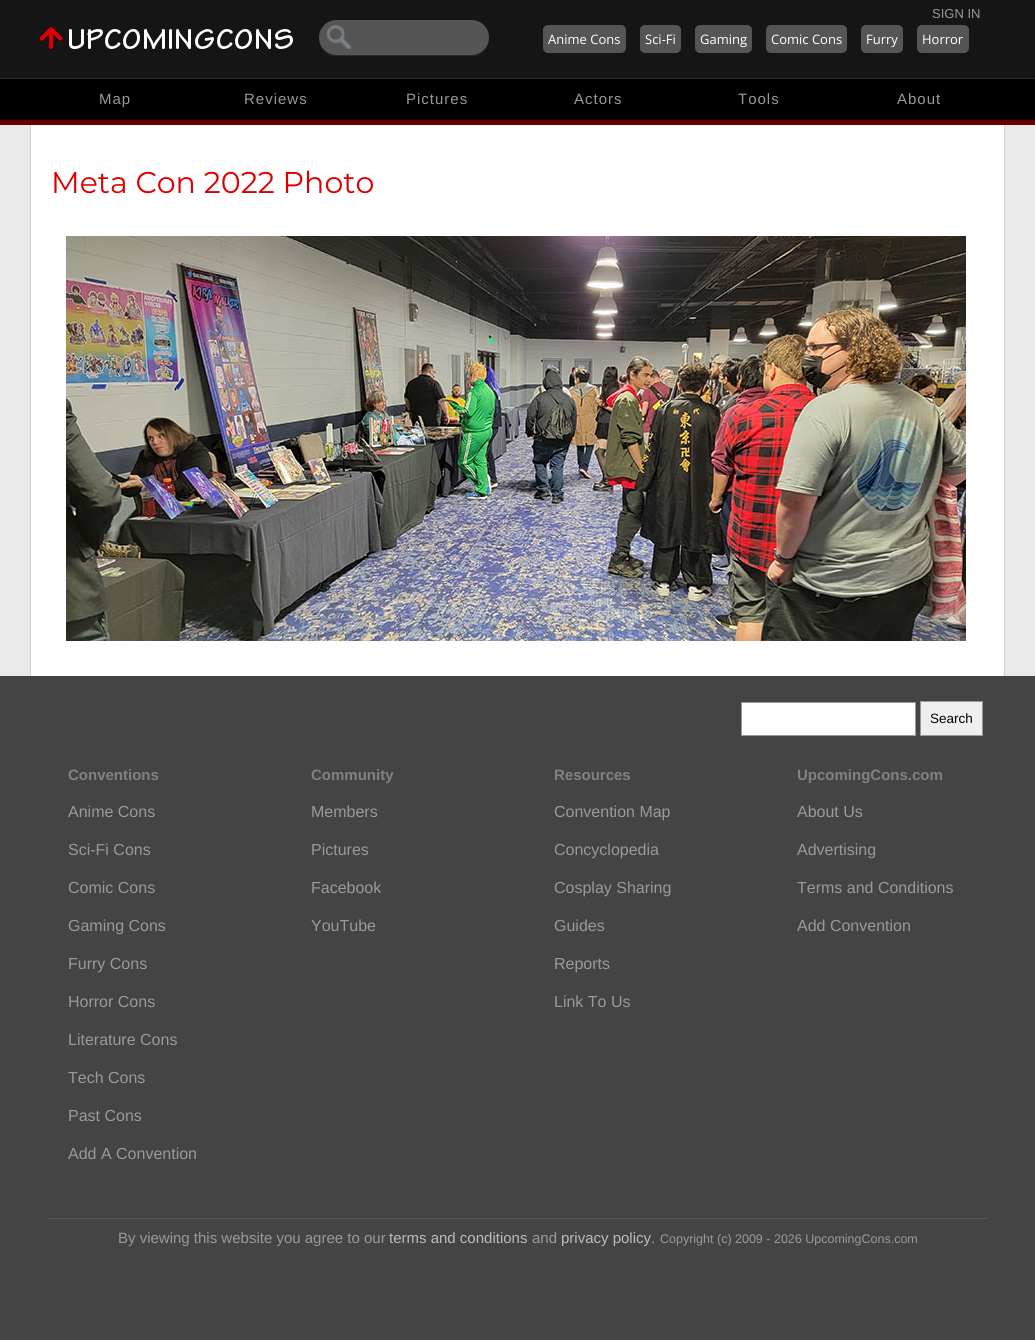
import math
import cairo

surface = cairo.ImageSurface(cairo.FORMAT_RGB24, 1035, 1340)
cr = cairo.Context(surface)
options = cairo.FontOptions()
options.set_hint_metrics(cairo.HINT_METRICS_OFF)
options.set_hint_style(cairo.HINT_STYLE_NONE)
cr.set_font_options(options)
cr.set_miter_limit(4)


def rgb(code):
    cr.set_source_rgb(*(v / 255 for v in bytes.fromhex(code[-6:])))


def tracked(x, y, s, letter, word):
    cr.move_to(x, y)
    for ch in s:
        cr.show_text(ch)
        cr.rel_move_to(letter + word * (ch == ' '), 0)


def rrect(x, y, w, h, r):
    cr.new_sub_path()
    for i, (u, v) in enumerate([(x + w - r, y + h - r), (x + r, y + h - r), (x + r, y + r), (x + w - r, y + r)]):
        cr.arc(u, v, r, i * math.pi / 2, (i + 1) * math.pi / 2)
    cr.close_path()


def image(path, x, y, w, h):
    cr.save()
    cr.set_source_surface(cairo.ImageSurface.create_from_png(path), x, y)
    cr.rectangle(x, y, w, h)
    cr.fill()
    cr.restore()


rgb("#444444")
cr.paint()
rgb("#151515")
cr.rectangle(0, 0, 1035, 78)
cr.fill()
rgb("#292929")
cr.rectangle(0, 78, 1035, 1)
cr.fill()
image("img/1.png", 39, 26, 254, 24)
rgb("#2c2c2c")
cr.new_path()
cr.move_to(319, 38)
cr.curve_to(319, 48, 327, 56, 336, 56)
cr.line_to(472, 56)
cr.curve_to(481, 56, 489, 48, 489, 38)
cr.curve_to(489, 47, 481, 55, 472, 55)
cr.line_to(336, 55)
cr.curve_to(327, 55, 319, 47, 319, 38)
cr.close_path()
cr.fill()
rgb("#555555")
rrect(319, 20, 170, 35, 17.5)
cr.fill()
image("img/2.png", 326, 25, 26, 25)
rrect(543, 25, 83, 28, 5)
cr.fill()
rrect(640, 25, 41, 28, 5)
cr.fill()
rrect(695, 25, 57, 28, 5)
cr.fill()
rrect(766, 25, 81, 28, 5)
cr.fill()
rrect(861, 25, 42, 28, 5)
cr.fill()
rrect(917, 25, 52, 28, 5)
cr.fill()
for x, y, w, h, color in [
    (0, 79, 1035, 41, "#000000"),
    (0, 120, 1035, 5, "#660000"),
    (0, 125, 1035, 551, "#eaeaea"),
    (31, 125, 973, 551, "#ffffff"),
    (1004, 125, 1, 551, "#d1d1d1"),
    (30, 125, 1, 551, "#d1d1d1"),
]:
    rgb(color)
    cr.rectangle(x, y, w, h)
    cr.fill()
image("img/3.png", 66, 236, 900, 405)
rgb("#ffffff")
cr.rectangle(741.5, 702.5, 174, 33)
cr.fill_preserve()
rgb("#999999")
cr.set_line_width(1)
cr.stroke()
rgb("#efefef")
cr.rectangle(920.5, 701.5, 62, 34)
cr.fill_preserve()
rgb("#999999")
cr.stroke()
rgb("#555555")
cr.rectangle(48, 1218, 940, 1)
cr.fill()
cr.select_font_face("Liberation Sans")
cr.set_font_size(13)
rgb("#999999")
cr.move_to(932, 18)
cr.show_text("SIGN IN")
cr.select_font_face("Open Sans")
rgb("#ffffff")
for x, y, s in [
    (548, 44, "Anime Cons"),
    (645, 44, "Sci-Fi"),
    (700, 44, "Gaming"),
    (771, 44, "Comic Cons"),
    (866, 44, "Furry"),
    (922, 44, "Horror"),
]:
    cr.move_to(x, y)
    cr.show_text(s)
cr.select_font_face("Liberation Sans")
cr.set_font_size(15)
rgb("#999999")
for x, y, s in [
    (99, 104, "Map"),
    (244, 104, "Reviews"),
    (406, 104, "Pictures"),
    (574, 104, "Actors"),
    (738, 104, "Tools"),
    (897, 104, "About"),
]:
    tracked(x, y, s, 1, 0)
cr.select_font_face("Montserrat Thin")
cr.set_font_size(30)
rgb("#dd0000")
cr.move_to(51, 193)
cr.show_text("Meta Con 2022 Photo")
cr.select_font_face("Liberation Sans")
cr.set_font_size(13.5)
rgb("#000000")
cr.move_to(930, 723)
cr.show_text("Search")
cr.select_font_face("Liberation Sans", cairo.FONT_SLANT_NORMAL, cairo.FONT_WEIGHT_BOLD)
cr.set_font_size(15)
rgb("#818181")
cr.move_to(68, 780)
cr.show_text("Conventions")
cr.select_font_face("Liberation Sans")
cr.set_font_size(16)
rgb("#999999")
for x, y, s in [
    (68, 817, "Anime Cons"),
    (68, 855, "Sci-Fi Cons"),
    (68, 893, "Comic Cons"),
    (68, 931, "Gaming Cons"),
    (68, 969, "Furry Cons"),
    (68, 1007, "Horror Cons"),
    (68, 1045, "Literature Cons"),
    (68, 1083, "Tech Cons"),
    (68, 1121, "Past Cons"),
    (68, 1159, "Add A Convention"),
]:
    cr.move_to(x, y)
    cr.show_text(s)
cr.select_font_face("Liberation Sans", cairo.FONT_SLANT_NORMAL, cairo.FONT_WEIGHT_BOLD)
cr.set_font_size(15)
rgb("#818181")
cr.move_to(311, 780)
cr.show_text("Community")
cr.select_font_face("Liberation Sans")
cr.set_font_size(16)
rgb("#999999")
for x, y, s in [
    (311, 817, "Members"),
    (311, 855, "Pictures"),
    (311, 893, "Facebook"),
    (311, 931, "YouTube"),
]:
    cr.move_to(x, y)
    cr.show_text(s)
cr.select_font_face("Liberation Sans", cairo.FONT_SLANT_NORMAL, cairo.FONT_WEIGHT_BOLD)
cr.set_font_size(15)
rgb("#818181")
cr.move_to(554, 780)
cr.show_text("Resources")
cr.select_font_face("Liberation Sans")
cr.set_font_size(16)
rgb("#999999")
for x, y, s in [
    (554, 817, "Convention Map"),
    (554, 855, "Concyclopedia"),
    (554, 893, "Cosplay Sharing"),
    (554, 931, "Guides"),
    (554, 969, "Reports"),
    (554, 1007, "Link To Us"),
]:
    cr.move_to(x, y)
    cr.show_text(s)
cr.select_font_face("Liberation Sans", cairo.FONT_SLANT_NORMAL, cairo.FONT_WEIGHT_BOLD)
cr.set_font_size(15)
rgb("#818181")
cr.move_to(797, 780)
cr.show_text("UpcomingCons.com")
cr.select_font_face("Liberation Sans")
cr.set_font_size(16)
rgb("#999999")
for x, y, s in [
    (797, 817, "About Us"),
    (797, 855, "Advertising"),
    (797, 893, "Terms and Conditions"),
    (797, 931, "Add Convention"),
]:
    cr.move_to(x, y)
    cr.show_text(s)
cr.set_font_size(15)
cr.move_to(118, 1243)
cr.show_text("By viewing this website you agree to our")
rgb("#bbbbbb")
cr.move_to(389, 1243)
cr.show_text("terms and conditions")
rgb("#999999")
cr.move_to(532, 1243)
cr.show_text("and")
rgb("#bbbbbb")
cr.move_to(561, 1243)
cr.show_text("privacy policy")
rgb("#999999")
cr.move_to(651, 1243)
cr.show_text(".")
cr.set_font_size(12.5)
cr.move_to(660, 1243)
cr.show_text("Copyright (c) 2009 - 2026 UpcomingCons.com")
surface.write_to_png("page.png")
